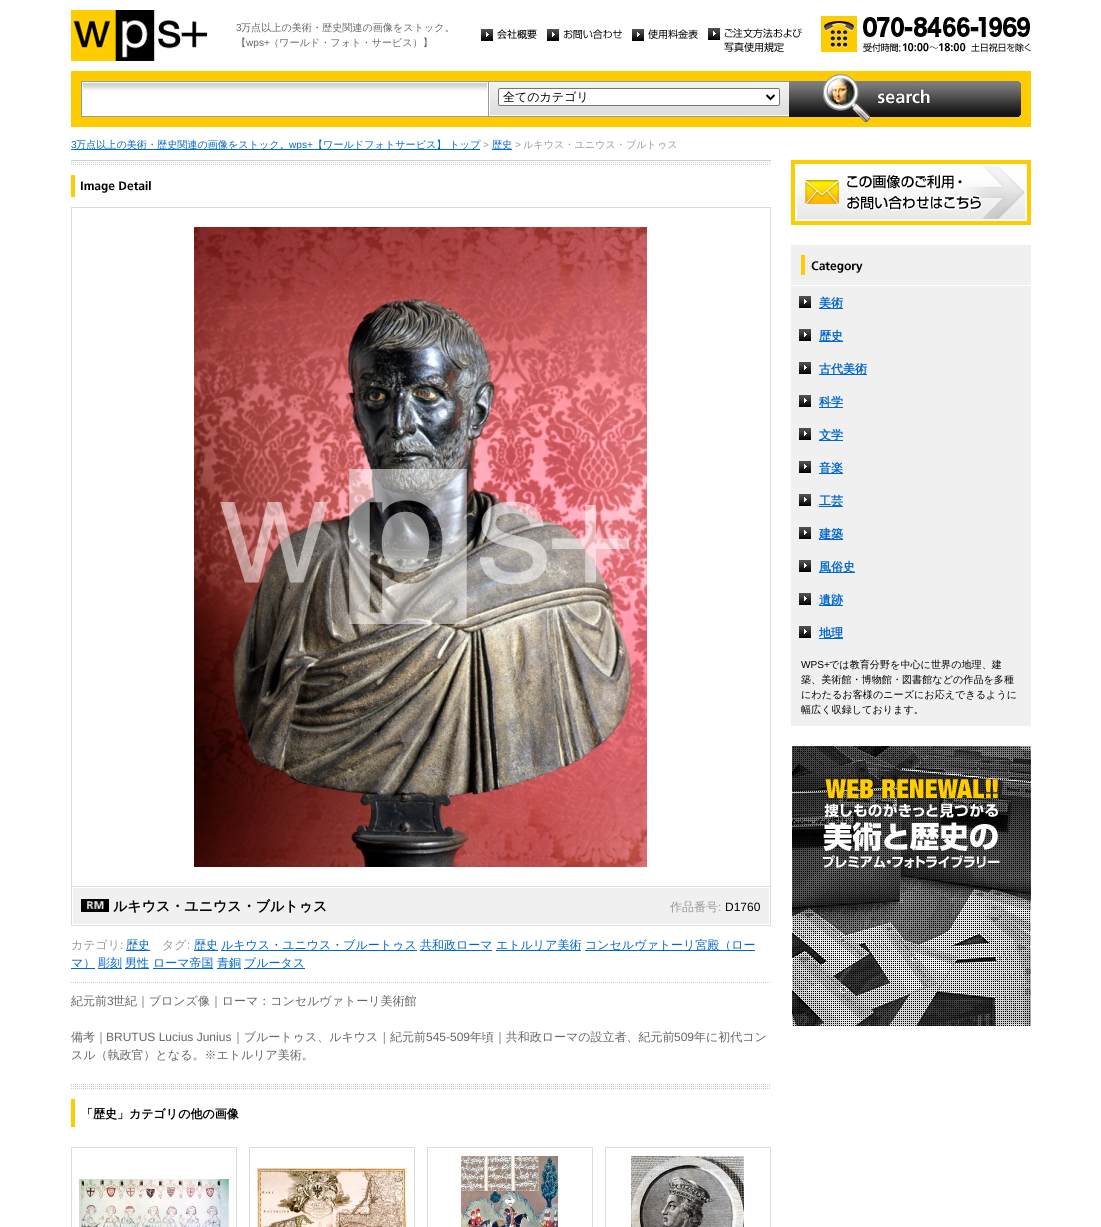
import math
import cairo

surface = cairo.ImageSurface(cairo.FORMAT_RGB24, 1101, 1227)
cr = cairo.Context(surface)
options = cairo.FontOptions()
options.set_hint_metrics(cairo.HINT_METRICS_OFF)
options.set_hint_style(cairo.HINT_STYLE_NONE)
cr.set_font_options(options)
cr.set_miter_limit(4)


def rgb(code):
    cr.set_source_rgb(*(v / 255 for v in bytes.fromhex(code[-6:])))


def rrect(x, y, w, h, r):
    cr.new_sub_path()
    for i, (u, v) in enumerate([(x + w - r, y + h - r), (x + r, y + h - r), (x + r, y + r), (x + w - r, y + r)]):
        cr.arc(u, v, r, i * math.pi / 2, (i + 1) * math.pi / 2)
    cr.close_path()


def image(path, x, y, w, h):
    cr.save()
    cr.set_source_surface(cairo.ImageSurface.create_from_png(path), x, y)
    cr.rectangle(x, y, w, h)
    cr.fill()
    cr.restore()


rgb("#ffffff")
cr.paint()
image("img/1.png", 71, 10, 136, 51)
image("img/2.png", 481, 29, 56, 12)
image("img/3.png", 547, 29, 75, 12)
image("img/4.png", 632, 29, 66, 12)
image("img/5.png", 708, 28, 94, 24)
image("img/6.png", 821, 16, 210, 36)
rgb("#ffcc00")
cr.rectangle(71, 71, 960, 56)
cr.fill()
image("img/7.png", 81, 81, 407, 36)
image("img/8.png", 488, 81, 301, 36)
rgb("#ffffff")
rrect(498.5, 88.5, 281, 17, 1.5)
cr.fill_preserve()
rgb("#767676")
cr.set_line_width(1)
cr.stroke()
cr.new_path()
cr.move_to(766.5, 95)
cr.line_to(770.5, 99)
cr.line_to(774.5, 95)
rgb("#000000")
cr.set_line_width(2)
cr.stroke()
image("img/9.png", 789, 74, 232, 48)
rgb("#0066cc")
cr.rectangle(71, 149, 409, 1)
cr.fill()
cr.rectangle(492, 149, 20, 1)
cr.fill()
image("img/10.png", 791, 160, 240, 65)
image("img/11.png", 791, 245, 240, 40)
rgb("#f0f0f0")
cr.rectangle(791, 286, 240, 440)
cr.fill()
image("img/12.png", 799, 296, 12, 12)
rgb("#0066cc")
cr.rectangle(819, 308, 24, 1)
cr.fill()
image("img/12.png", 799, 329, 12, 12)
cr.rectangle(819, 341, 24, 1)
cr.fill()
image("img/12.png", 799, 362, 12, 12)
cr.rectangle(819, 374, 48, 1)
cr.fill()
image("img/12.png", 799, 395, 12, 12)
cr.rectangle(819, 407, 24, 1)
cr.fill()
image("img/12.png", 799, 428, 12, 12)
cr.rectangle(819, 440, 24, 1)
cr.fill()
image("img/12.png", 799, 461, 12, 12)
cr.rectangle(819, 473, 24, 1)
cr.fill()
image("img/12.png", 799, 494, 12, 12)
cr.rectangle(819, 506, 24, 1)
cr.fill()
image("img/12.png", 799, 527, 12, 12)
cr.rectangle(819, 539, 24, 1)
cr.fill()
image("img/12.png", 799, 560, 12, 12)
cr.rectangle(819, 572, 36, 1)
cr.fill()
image("img/12.png", 799, 593, 12, 12)
cr.rectangle(819, 605, 24, 1)
cr.fill()
image("img/12.png", 799, 626, 12, 12)
cr.rectangle(819, 638, 24, 1)
cr.fill()
image("img/13.png", 792, 746, 239, 280)
image("img/14.png", 71, 160, 700, 5)
rgb("#ffcc00")
cr.rectangle(71, 175, 4, 22)
cr.fill()
image("img/15.png", 81, 181, 70, 12)
for x, y, w, h, color in [
    (71, 207, 700, 1, "#dcdcdc"),
    (770, 207, 1, 680, "#dcdcdc"),
    (71, 207, 1, 680, "#dcdcdc"),
]:
    rgb(color)
    cr.rectangle(x, y, w, h)
    cr.fill()
image("img/16.png", 194, 227, 453, 640)
image("img/17.png", 71, 886, 700, 40)
image("img/18.png", 72, 886, 698, 2)
image("img/19.png", 81, 899, 28, 13)
for x, y, w, h, color in [
    (126, 950, 24, 1, "#0066cc"),
    (194, 950, 24, 1, "#0066cc"),
    (221, 950, 196, 1, "#0066cc"),
    (420, 950, 72, 1, "#0066cc"),
    (496, 950, 85, 1, "#0066cc"),
    (585, 950, 170, 1, "#0066cc"),
    (71, 968, 24, 1, "#0066cc"),
    (98, 968, 24, 1, "#0066cc"),
    (125, 968, 24, 1, "#0066cc"),
    (153, 968, 60, 1, "#0066cc"),
    (217, 968, 24, 1, "#0066cc"),
    (244, 968, 61, 1, "#0066cc"),
]:
    rgb(color)
    cr.rectangle(x, y, w, h)
    cr.fill()
image("img/20.png", 71, 982, 699, 1)
image("img/21.png", 71, 1084, 699, 5)
for x, y, w, h, color in [
    (71, 1099, 4, 28, "#ffcc00"),
    (71, 1147, 166, 1, "#dcdcdc"),
    (236, 1147, 1, 80, "#dcdcdc"),
    (71, 1147, 1, 80, "#dcdcdc"),
]:
    rgb(color)
    cr.rectangle(x, y, w, h)
    cr.fill()
image("img/22.png", 79, 1179, 150, 48)
for x, y, w, h, color in [
    (249, 1147, 166, 1, "#dcdcdc"),
    (414, 1147, 1, 80, "#dcdcdc"),
    (249, 1147, 1, 80, "#dcdcdc"),
]:
    rgb(color)
    cr.rectangle(x, y, w, h)
    cr.fill()
image("img/23.png", 257, 1168, 150, 59)
for x, y, w, h, color in [
    (427, 1147, 166, 1, "#dcdcdc"),
    (592, 1147, 1, 80, "#dcdcdc"),
    (427, 1147, 1, 80, "#dcdcdc"),
]:
    rgb(color)
    cr.rectangle(x, y, w, h)
    cr.fill()
image("img/24.png", 461, 1156, 97, 71)
for x, y, w, h, color in [
    (605, 1147, 166, 1, "#dcdcdc"),
    (770, 1147, 1, 80, "#dcdcdc"),
    (605, 1147, 1, 80, "#dcdcdc"),
]:
    rgb(color)
    cr.rectangle(x, y, w, h)
    cr.fill()
image("img/25.png", 631, 1156, 113, 71)
cr.select_font_face("Liberation Sans")
cr.set_font_size(10.1)
rgb("#666666")
cr.move_to(236, 31)
cr.show_text("3")
cr.select_font_face("WenQuanYi Zen Hei Medium")
cr.move_to(241, 31)
cr.show_text("万点以上の美術・歴史関連の画像をストック。")
cr.move_to(236, 46)
cr.show_text("【")
cr.select_font_face("Liberation Sans")
cr.move_to(246, 46)
cr.show_text("wps+")
cr.select_font_face("WenQuanYi Zen Hei Medium")
cr.move_to(269, 46)
cr.show_text("（ワールド・フォト・サービス）】")
cr.set_font_size(12)
rgb("#000000")
cr.move_to(503, 101)
cr.show_text("全てのカテゴリ")
cr.select_font_face("Liberation Sans")
cr.set_font_size(10.1)
rgb("#0066cc")
cr.move_to(71, 148)
cr.show_text("3")
cr.select_font_face("WenQuanYi Zen Hei Medium")
cr.move_to(76, 148)
cr.show_text("万点以上の美術・歴史関連の画像をストック。")
cr.select_font_face("Liberation Sans")
cr.move_to(289, 148)
cr.show_text("wps+")
cr.select_font_face("WenQuanYi Zen Hei Medium")
cr.move_to(313, 148)
cr.show_text("【ワールドフォトサービス】 トップ")
cr.select_font_face("Liberation Sans")
rgb("#999999")
cr.move_to(483, 148)
cr.show_text(">")
cr.select_font_face("WenQuanYi Zen Hei Medium")
rgb("#0066cc")
cr.move_to(492, 148)
cr.show_text("歴史")
cr.select_font_face("Liberation Sans")
rgb("#999999")
cr.move_to(515, 148)
cr.show_text(">")
cr.select_font_face("WenQuanYi Zen Hei Medium")
cr.move_to(523, 148)
cr.show_text("ルキウス・ユニウス・ブルトゥス")
cr.select_font_face("WenQuanYi Zen Hei", cairo.FONT_SLANT_NORMAL, cairo.FONT_WEIGHT_BOLD)
cr.set_font_size(12)
rgb("#0066cc")
for x, y, s in [
    (819, 307, "美術"),
    (819, 340, "歴史"),
    (819, 373, "古代美術"),
    (819, 406, "科学"),
    (819, 439, "文学"),
    (819, 472, "音楽"),
    (819, 505, "工芸"),
    (819, 538, "建築"),
    (819, 571, "風俗史"),
    (819, 604, "遺跡"),
    (819, 637, "地理"),
]:
    cr.move_to(x, y)
    cr.show_text(s)
cr.select_font_face("Liberation Sans")
cr.set_font_size(10.1)
rgb("#000000")
cr.move_to(801, 668)
cr.show_text("WPS+")
cr.select_font_face("WenQuanYi Zen Hei Medium")
for x, y, s in [
    (829, 668, "では教育分野を中心に世界の地理、建"),
    (801, 683, "築、美術館・博物館・図書館などの作品を多種"),
    (801, 698, "にわたるお客様のニーズにお応えできるように"),
    (801, 713, "幅広く収録しております。"),
]:
    cr.move_to(x, y)
    cr.show_text(s)
cr.select_font_face("WenQuanYi Zen Hei", cairo.FONT_SLANT_NORMAL, cairo.FONT_WEIGHT_BOLD)
cr.set_font_size(14)
cr.move_to(113, 911)
cr.show_text("ルキウス・ユニウス・ブルトゥス")
cr.select_font_face("WenQuanYi Zen Hei Medium")
cr.set_font_size(12)
rgb("#999999")
cr.move_to(670, 911)
cr.show_text("作品番号")
cr.select_font_face("Liberation Sans")
cr.move_to(718, 911)
cr.show_text(":")
rgb("#000000")
cr.move_to(725, 911)
cr.show_text("D1760")
cr.select_font_face("WenQuanYi Zen Hei Medium")
rgb("#999999")
cr.move_to(71, 949)
cr.show_text("カテゴリ")
cr.select_font_face("Liberation Sans")
cr.move_to(120, 949)
cr.show_text(":")
cr.select_font_face("WenQuanYi Zen Hei Medium")
rgb("#0066cc")
cr.move_to(126, 949)
cr.show_text("歴史")
rgb("#999999")
cr.move_to(162, 949)
cr.show_text("タグ")
cr.select_font_face("Liberation Sans")
cr.move_to(187, 949)
cr.show_text(":")
cr.select_font_face("WenQuanYi Zen Hei Medium")
rgb("#0066cc")
for x, y, s in [
    (194, 949, "歴史"),
    (221, 949, "ルキウス・ユニウス・ブルートゥス"),
    (420, 949, "共和政ローマ"),
    (496, 949, "エトルリア美術"),
    (585, 949, "コンセルヴァトーリ宮殿（ロー"),
    (71, 967, "マ）"),
    (98, 967, "彫刻"),
    (125, 967, "男性"),
    (153, 967, "ローマ帝国"),
    (217, 967, "青銅"),
    (244, 967, "ブルータス"),
]:
    cr.move_to(x, y)
    cr.show_text(s)
rgb("#666666")
cr.move_to(71, 1005)
cr.show_text("紀元前")
cr.select_font_face("Liberation Sans")
cr.move_to(107, 1005)
cr.show_text("3")
cr.select_font_face("WenQuanYi Zen Hei Medium")
cr.move_to(113, 1005)
cr.show_text("世紀｜ブロンズ像｜ローマ：コンセルヴァトーリ美術館")
cr.move_to(71, 1041)
cr.show_text("備考｜")
cr.select_font_face("Liberation Sans")
cr.move_to(106, 1041)
cr.show_text("BRUTUS Lucius Junius")
cr.select_font_face("WenQuanYi Zen Hei Medium")
cr.move_to(232, 1041)
cr.show_text("｜ブルートゥス、ルキウス｜紀元前")
cr.select_font_face("Liberation Sans")
cr.move_to(426, 1041)
cr.show_text("545-509")
cr.select_font_face("WenQuanYi Zen Hei Medium")
cr.move_to(470, 1041)
cr.show_text("年頃｜共和政ローマの設立者、紀元前")
cr.select_font_face("Liberation Sans")
cr.move_to(674, 1041)
cr.show_text("509")
cr.select_font_face("WenQuanYi Zen Hei Medium")
cr.move_to(694, 1041)
cr.show_text("年に初代コン")
cr.move_to(71, 1059)
cr.show_text("スル（執政官）となる。※エトルリア美術。")
cr.select_font_face("WenQuanYi Zen Hei", cairo.FONT_SLANT_NORMAL, cairo.FONT_WEIGHT_BOLD)
rgb("#000000")
cr.move_to(81, 1118)
cr.show_text("「歴史」カテゴリの他の画像")
surface.write_to_png("page.png")
